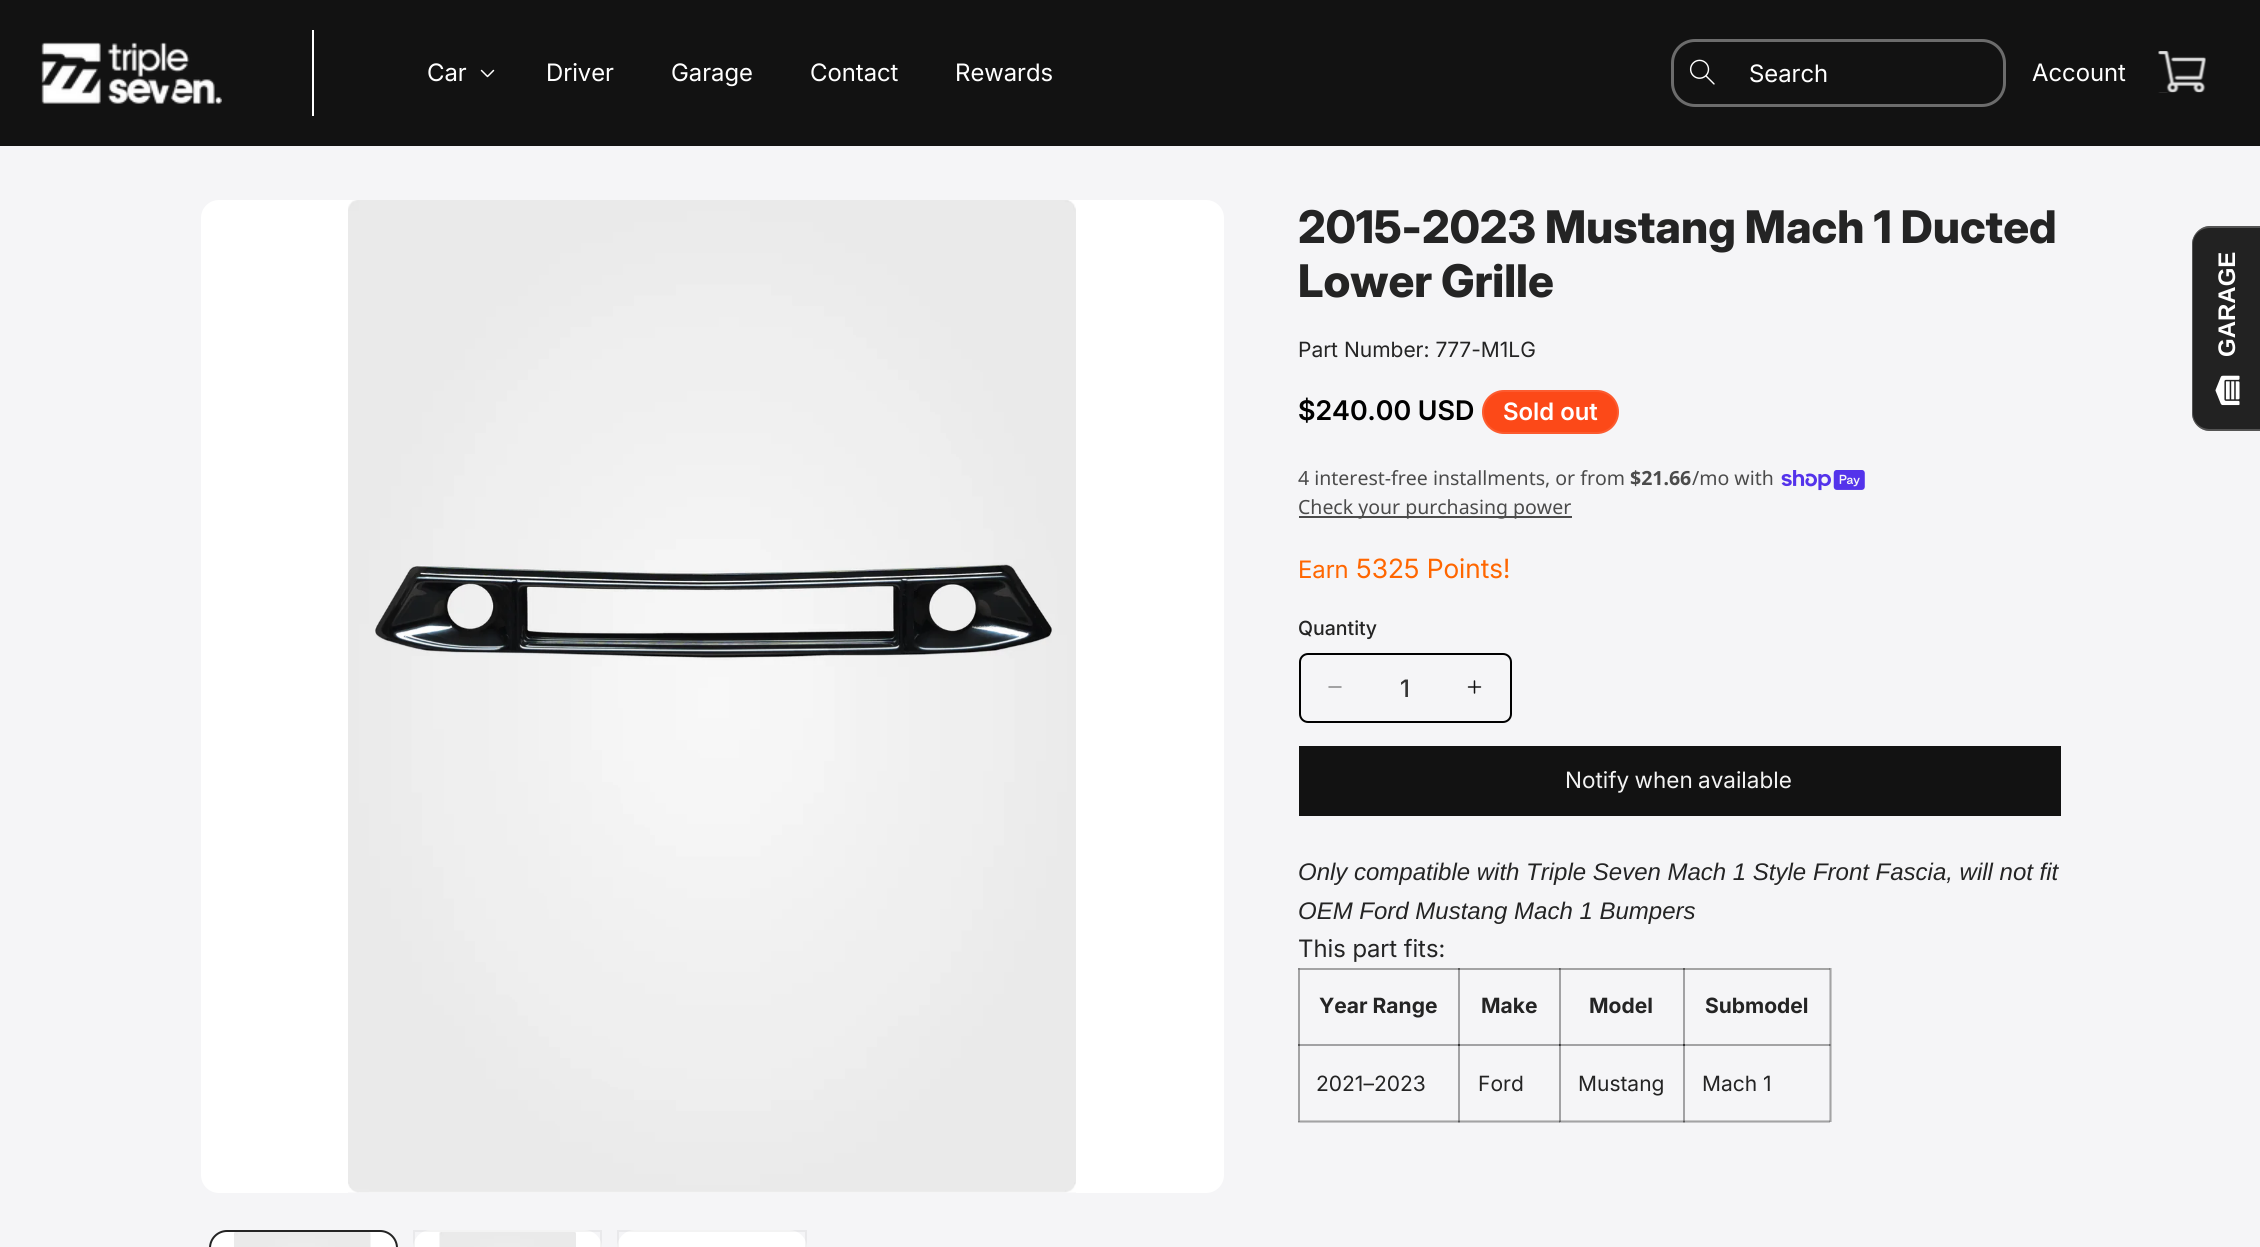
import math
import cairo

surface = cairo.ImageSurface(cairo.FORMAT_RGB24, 2260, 1247)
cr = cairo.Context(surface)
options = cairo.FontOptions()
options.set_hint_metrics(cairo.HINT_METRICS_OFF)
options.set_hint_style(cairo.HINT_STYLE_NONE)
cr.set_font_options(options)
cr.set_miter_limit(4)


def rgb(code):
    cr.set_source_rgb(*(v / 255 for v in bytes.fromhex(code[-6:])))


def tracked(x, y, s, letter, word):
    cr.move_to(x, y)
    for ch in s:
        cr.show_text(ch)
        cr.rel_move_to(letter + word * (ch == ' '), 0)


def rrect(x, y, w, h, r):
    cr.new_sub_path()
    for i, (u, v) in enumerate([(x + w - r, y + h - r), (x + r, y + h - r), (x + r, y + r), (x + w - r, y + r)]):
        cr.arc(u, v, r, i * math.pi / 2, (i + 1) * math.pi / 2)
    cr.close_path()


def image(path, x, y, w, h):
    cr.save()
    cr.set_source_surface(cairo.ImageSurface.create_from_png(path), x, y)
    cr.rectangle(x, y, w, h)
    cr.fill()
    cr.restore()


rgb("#f5f5f7")
cr.paint()
rgb("#121212")
cr.rectangle(0, 0, 2260, 146)
cr.fill()
rgb("#ffffff")
cr.rectangle(312, 30, 2, 86)
cr.fill()
image("img/1.png", 41, 42, 181, 62)
image("img/2.png", 480, 69, 15, 9)
rrect(1672.5, 40.5, 332, 65, 22.5)
rgb("#6c6c6c")
cr.set_line_width(3)
cr.stroke()
image("img/3.png", 1689, 59, 26, 26)
image("img/4.png", 2158, 51, 48, 42)
rgb("#ffffff")
rrect(201, 200, 1023, 993, 18)
cr.fill()
rgb("#f5f5f7")
cr.rectangle(348, 1192, 728, 1)
cr.fill()
image("img/5.png", 348, 200, 728, 993)
rgb("#ffffff")
rrect(210, 1231, 187, 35, 17)
cr.fill_preserve()
rgb("#242424")
cr.set_line_width(2)
cr.stroke()
image("img/6.png", 234, 1232, 137, 15)
rgb("#ffffff")
rrect(413, 1230, 189, 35, 18)
cr.fill()
cr.rectangle(414, 1231, 187, 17)
cr.set_source_rgba(0.071, 0.071, 0.071, 0.05)
cr.stroke()
image("img/7.png", 439, 1232, 137, 15)
rgb("#ffffff")
rrect(617, 1230, 190, 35, 18)
cr.fill()
cr.rectangle(618, 1231, 188, 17)
cr.set_source_rgba(0.071, 0.071, 0.071, 0.05)
cr.stroke()
rgb("#fc4918")
rrect(1482, 390, 137, 44, 22)
cr.fill()
rrect(1483, 391, 135, 42, 21)
cr.set_source_rgba(1, 1, 1, 0.1)
cr.stroke()
image("img/8.png", 1781, 470, 84, 21)
rgb("#4b4b4b")
cr.rectangle(1299, 516, 273, 2)
cr.fill()
rrect(1300, 654, 211, 68, 8)
rgb("#000000")
cr.stroke()
image("img/9.png", 1328, 686, 14, 2)
image("img/10.png", 1467, 680, 15, 14)
rgb("#121212")
cr.rectangle(1299, 746, 762, 70)
cr.fill()
cr.rectangle(1299, 969, 532, 152)
rgb("#c8c8c9")
cr.stroke()
rgb("#a4a4a4")
cr.rectangle(1683, 968, 147, 2)
cr.fill()
rgb("#c8c8c9")
cr.rectangle(1683, 1044, 147, 2)
cr.fill()
cr.set_source_rgba(0.071, 0.071, 0.071, 0.2)
cr.rectangle(1829, 1044, 2, 78)
cr.fill()
cr.rectangle(1829, 968, 2, 78)
cr.fill()
cr.rectangle(1683, 1121, 147, 2)
cr.fill()
cr.rectangle(1683, 1044, 2, 78)
cr.fill()
cr.rectangle(1559, 1044, 126, 2)
cr.fill()
cr.rectangle(1683, 1044, 2, 78)
cr.fill()
cr.rectangle(1683, 1044, 147, 2)
cr.fill()
cr.rectangle(1683, 968, 2, 78)
cr.fill()
cr.rectangle(1559, 968, 126, 2)
cr.fill()
cr.rectangle(1683, 968, 2, 78)
cr.fill()
cr.rectangle(1559, 1121, 126, 2)
cr.fill()
cr.rectangle(1559, 1044, 2, 78)
cr.fill()
cr.rectangle(1458, 1044, 102, 2)
cr.fill()
cr.rectangle(1559, 1044, 2, 78)
cr.fill()
cr.rectangle(1559, 1044, 126, 2)
cr.fill()
cr.rectangle(1559, 968, 2, 78)
cr.fill()
cr.rectangle(1458, 968, 102, 2)
cr.fill()
cr.rectangle(1559, 968, 2, 78)
cr.fill()
cr.rectangle(1458, 1121, 102, 2)
cr.fill()
cr.rectangle(1458, 1044, 2, 78)
cr.fill()
cr.rectangle(1298, 1044, 162, 2)
cr.fill()
cr.rectangle(1458, 1044, 2, 78)
cr.fill()
cr.rectangle(1458, 1044, 102, 2)
cr.fill()
cr.rectangle(1458, 968, 2, 78)
cr.fill()
cr.rectangle(1298, 968, 162, 2)
cr.fill()
cr.rectangle(1458, 968, 2, 78)
cr.fill()
cr.rectangle(1298, 1121, 162, 2)
cr.fill()
cr.rectangle(1298, 1044, 2, 78)
cr.fill()
cr.rectangle(1298, 1044, 162, 2)
cr.fill()
cr.rectangle(1298, 968, 2, 78)
cr.fill()
rgb("#222222")
cr.new_path()
cr.move_to(2192, 413)
cr.line_to(2192, 244)
cr.curve_to(2192, 235, 2200, 226, 2210, 226)
cr.line_to(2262, 226)
cr.line_to(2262, 431)
cr.line_to(2210, 431)
cr.curve_to(2200, 431, 2192, 423, 2192, 413)
cr.close_path()
cr.fill()
cr.set_source_rgba(0.525, 0.525, 0.525, 0.5)
cr.set_fill_rule(cairo.FILL_RULE_EVEN_ODD)
cr.new_path()
cr.move_to(2192, 413)
cr.line_to(2192, 244)
cr.curve_to(2192, 235, 2200, 226, 2210, 226)
cr.line_to(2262, 226)
cr.line_to(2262, 431)
cr.line_to(2210, 431)
cr.curve_to(2200, 431, 2192, 423, 2192, 413)
cr.close_path()
cr.move_to(2193, 413)
cr.line_to(2193, 244)
cr.curve_to(2193, 235, 2200, 228, 2210, 228)
cr.line_to(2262, 228)
cr.line_to(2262, 429)
cr.line_to(2210, 429)
cr.curve_to(2200, 429, 2193, 422, 2193, 413)
cr.close_path()
cr.fill()
image("img/11.png", 2215, 375, 25, 31)
cr.select_font_face("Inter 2")
cr.set_font_size(24)
rgb("#ffffff")
for x, y, s in [
    (427, 81, "Car"),
    (546, 81, "Driver"),
    (671, 81, "Garage"),
    (810, 81, "Contact"),
    (955, 81, "Rewards"),
    (1749, 82, "Search"),
    (2032, 81, "Account"),
]:
    cr.move_to(x, y)
    cr.show_text(s)
cr.select_font_face("Inter ExtraBold")
cr.set_font_size(45)
rgb("#242424")
cr.move_to(1298, 243)
cr.show_text("2015-2023 Mustang Mach 1 Ducted")
cr.move_to(1298, 297)
cr.show_text("Lower Grille")
cr.select_font_face("Inter")
cr.set_font_size(21)
cr.move_to(1298, 357)
cr.show_text("Part Number: 777-M1LG")
cr.select_font_face("Inter SemiBold")
cr.set_font_size(27)
rgb("#000000")
cr.move_to(1298, 420)
cr.show_text("$240.00 USD")
cr.select_font_face("Inter 2 SemiBold")
cr.set_font_size(24)
rgb("#ffffff")
cr.move_to(1503, 420)
cr.show_text("Sold out")
cr.select_font_face("Noto Sans")
cr.set_font_size(19.5)
rgb("#4b4b4b")
cr.move_to(1298, 485)
cr.show_text("4 interest-free installments, or from")
cr.select_font_face("Noto Sans", cairo.FONT_SLANT_NORMAL, cairo.FONT_WEIGHT_BOLD)
cr.move_to(1630, 485)
cr.show_text("$21.66")
cr.select_font_face("Noto Sans")
cr.move_to(1692, 485)
cr.show_text("/mo with")
cr.move_to(1298, 514)
cr.show_text("Check your purchasing power")
cr.select_font_face("Inter 2")
cr.set_font_size(24)
rgb("#ff6600")
cr.move_to(1298, 578)
cr.show_text("Earn")
cr.select_font_face("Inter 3")
cr.set_font_size(26.5)
cr.move_to(1356, 578)
cr.show_text("5325 Points!")
cr.select_font_face("Inter Medium")
cr.set_font_size(19.5)
rgb("#242424")
cr.move_to(1298, 635)
cr.show_text("Quantity")
cr.select_font_face("Inter 2 Medium")
cr.set_font_size(24)
rgb("#343434")
cr.move_to(1400, 697)
cr.show_text("1")
cr.select_font_face("Inter")
cr.set_font_size(22.5)
rgb("#f3f3f3")
tracked(1565, 788, "Notify when available", 0, -1)
cr.select_font_face("Liberation Sans", cairo.FONT_SLANT_ITALIC)
cr.set_font_size(24)
rgb("#242424")
cr.move_to(1298, 880)
cr.show_text("Only compatible with Triple Seven Mach 1 Style Front Fascia, will not fit")
cr.move_to(1298, 919)
cr.show_text("OEM Ford Mustang Mach 1 Bumpers")
cr.select_font_face("Inter 2")
cr.move_to(1298, 957)
cr.show_text("This part fits:")
cr.select_font_face("Inter", cairo.FONT_SLANT_NORMAL, cairo.FONT_WEIGHT_BOLD)
cr.set_font_size(21)
for x, y, s in [
    (1319, 1013, "Year Range"),
    (1481, 1013, "Make"),
    (1589, 1013, "Model"),
    (1705, 1013, "Submodel"),
]:
    cr.move_to(x, y)
    cr.show_text(s)
cr.select_font_face("Inter")
for x, y, s in [
    (1316, 1091, "2021–2023"),
    (1478, 1091, "Ford"),
    (1578, 1091, "Mustang"),
    (1702, 1091, "Mach 1"),
]:
    cr.move_to(x, y)
    cr.show_text(s)
cr.select_font_face("Liberation Sans", cairo.FONT_SLANT_NORMAL, cairo.FONT_WEIGHT_BOLD)
cr.set_font_size(24)
rgb("#ffffff")
cr.save()
cr.translate(2235, 357)
cr.rotate(-90 * math.pi / 180)
cr.move_to(0, 0)
cr.show_text("GARAGE")
cr.restore()
surface.write_to_png("page.png")
